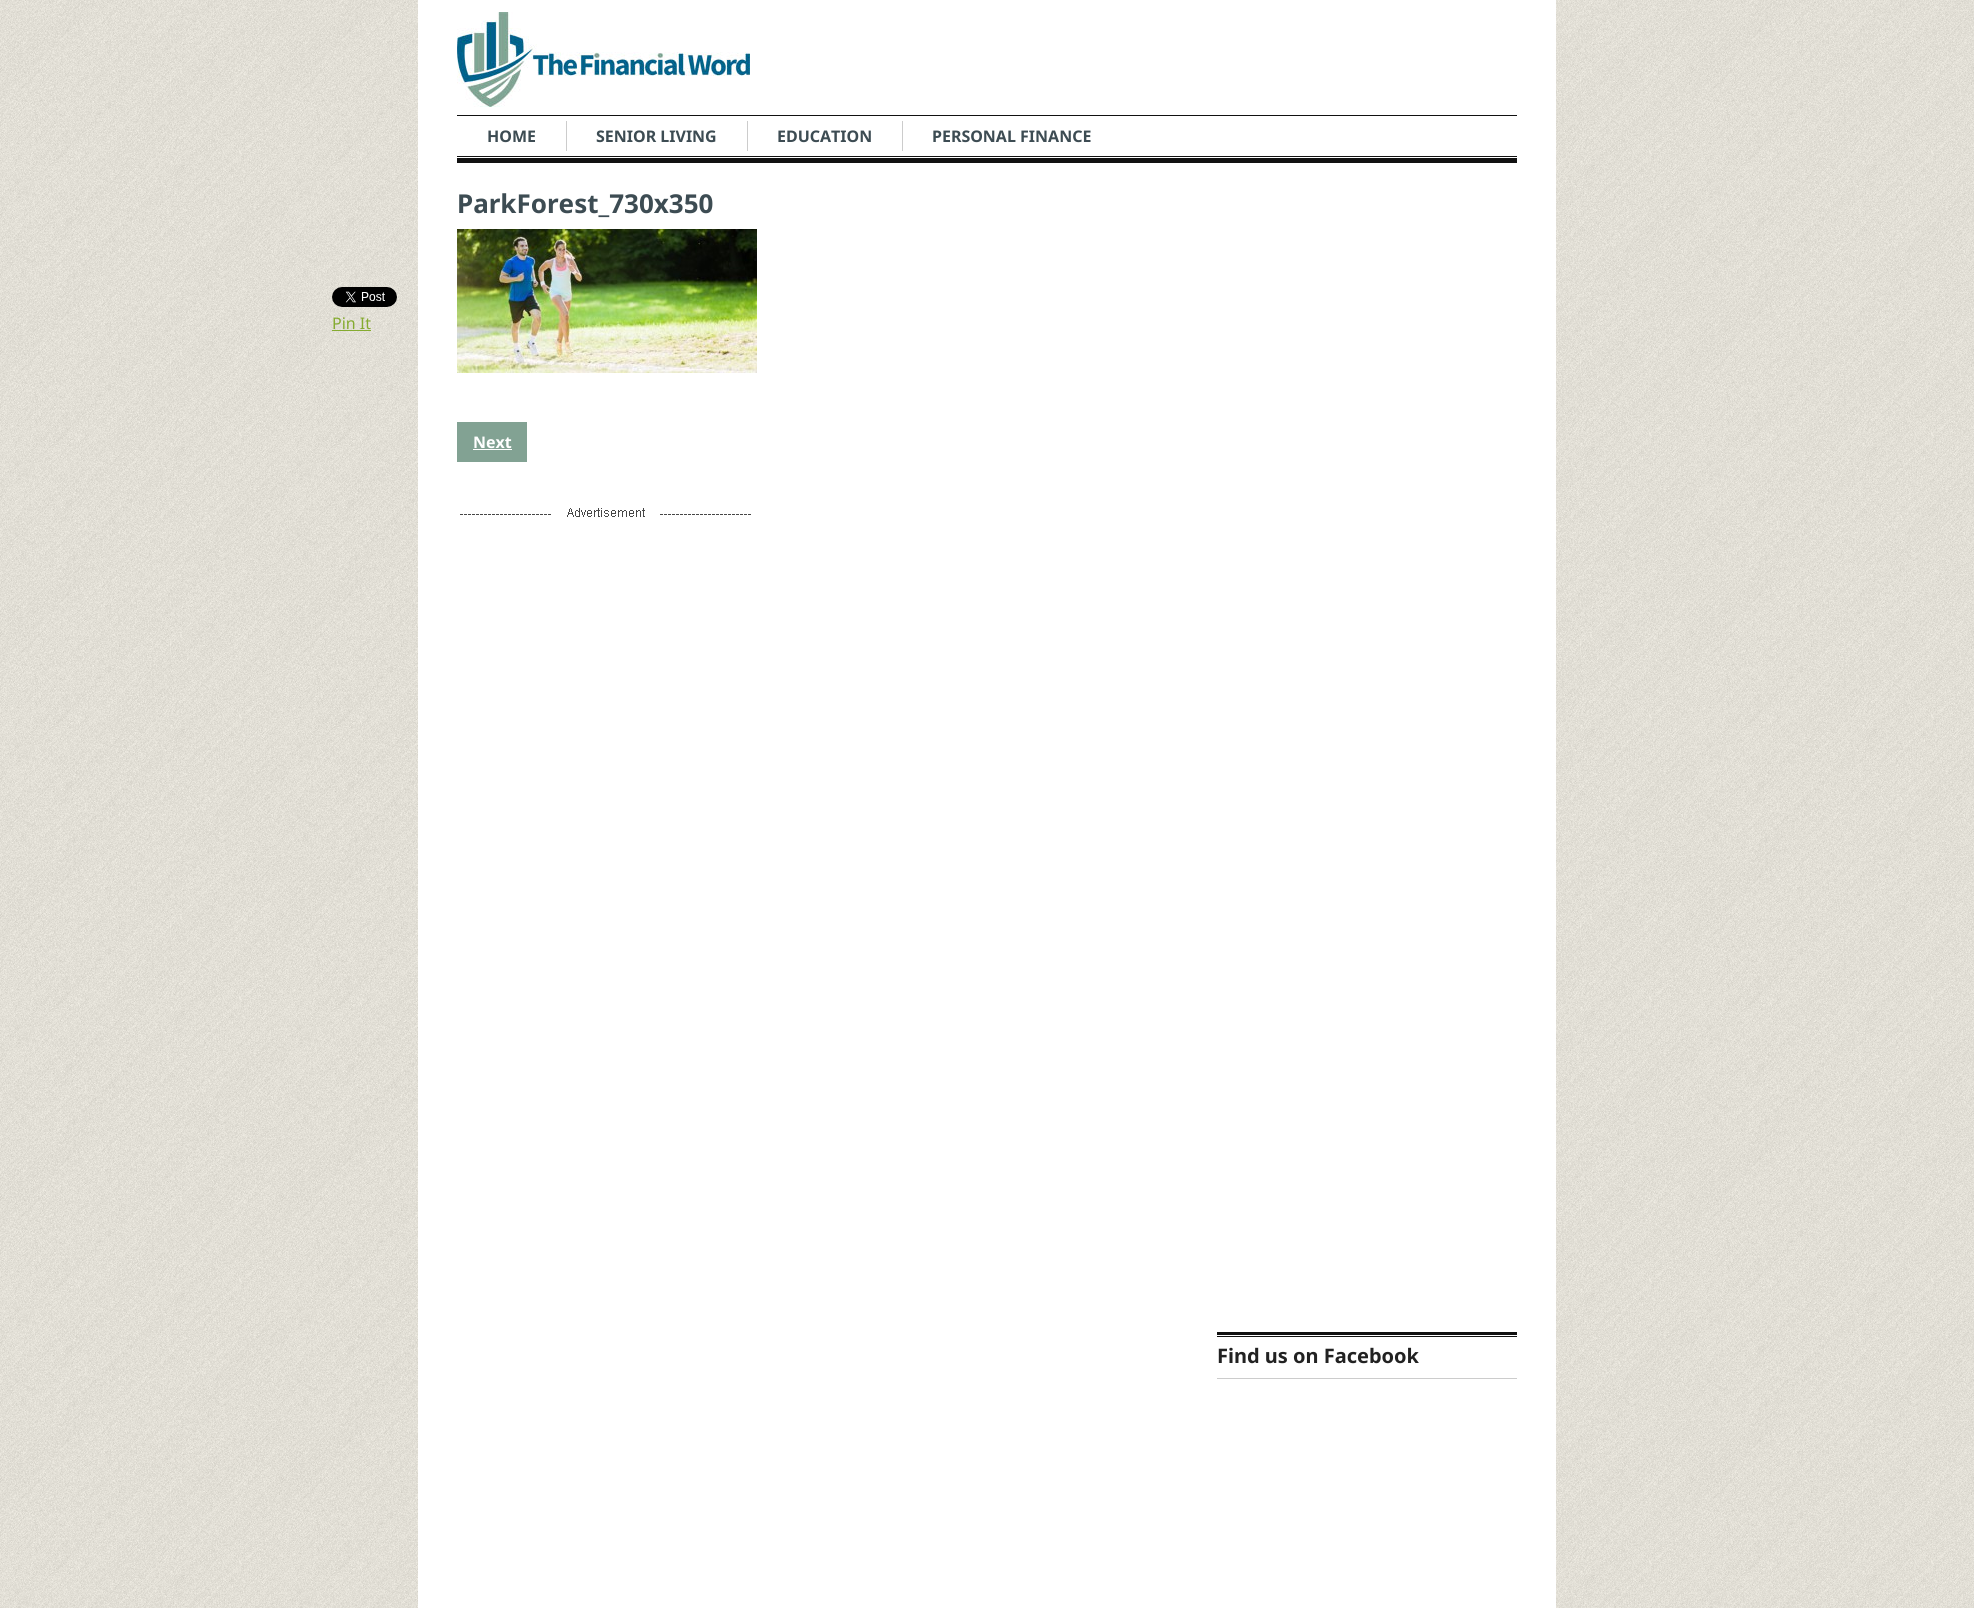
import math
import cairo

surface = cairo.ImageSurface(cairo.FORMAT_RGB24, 1974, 1608)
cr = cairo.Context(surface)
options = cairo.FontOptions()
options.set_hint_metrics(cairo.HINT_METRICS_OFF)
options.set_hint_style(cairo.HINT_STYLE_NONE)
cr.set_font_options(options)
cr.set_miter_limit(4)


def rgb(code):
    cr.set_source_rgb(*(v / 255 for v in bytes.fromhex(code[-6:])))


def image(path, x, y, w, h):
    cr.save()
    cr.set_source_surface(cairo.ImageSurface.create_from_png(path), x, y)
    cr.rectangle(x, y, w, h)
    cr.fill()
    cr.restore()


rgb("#ffffff")
cr.paint()
image("img/1.png", 0, 0, 1974, 1608)
rgb("#ffffff")
cr.rectangle(418, 0, 1138, 1608)
cr.fill()
image("img/2.png", 457, 12, 293, 95)
for x, y, w, h, color in [
    (457, 158, 1060, 5, "#111111"),
    (457, 115, 1060, 1, "#111111"),
    (457, 156, 1060, 1, "#111111"),
    (566, 121, 1, 30, "#cccccc"),
    (747, 121, 1, 30, "#cccccc"),
    (902, 121, 1, 30, "#cccccc"),
]:
    rgb(color)
    cr.rectangle(x, y, w, h)
    cr.fill()
image("img/3.png", 332, 287, 65, 20)
rgb("#85ab30")
cr.rectangle(332, 330, 39, 1)
cr.fill()
image("img/4.png", 460, 508, 291, 9)
image("img/5.png", 457, 229, 300, 144)
for x, y, w, h, color in [
    (457, 422, 70, 40, "#82a293"),
    (473, 449, 39, 1, "#ffffff"),
    (1217, 1332, 300, 3, "#111111"),
    (1217, 1336, 300, 1, "#111111"),
    (1217, 1378, 300, 1, "#cccccc"),
]:
    rgb(color)
    cr.rectangle(x, y, w, h)
    cr.fill()
cr.select_font_face("Noto Sans", cairo.FONT_SLANT_NORMAL, cairo.FONT_WEIGHT_BOLD)
cr.set_font_size(16)
rgb("#3d4c53")
for x, y, s in [
    (487, 142, "HOME"),
    (596, 142, "SENIOR LIVING"),
    (777, 142, "EDUCATION"),
    (932, 142, "PERSONAL FINANCE"),
]:
    cr.move_to(x, y)
    cr.show_text(s)
cr.set_font_size(26)
cr.move_to(457, 213)
cr.show_text("ParkForest_730x350")
cr.select_font_face("Noto Sans")
cr.set_font_size(16)
rgb("#85ab30")
cr.move_to(332, 329)
cr.show_text("Pin It")
cr.select_font_face("Noto Sans", cairo.FONT_SLANT_NORMAL, cairo.FONT_WEIGHT_BOLD)
rgb("#ffffff")
cr.move_to(473, 448)
cr.show_text("Next")
cr.set_font_size(20)
rgb("#222222")
cr.move_to(1217, 1363)
cr.show_text("Find us on Facebook")
surface.write_to_png("page.png")
